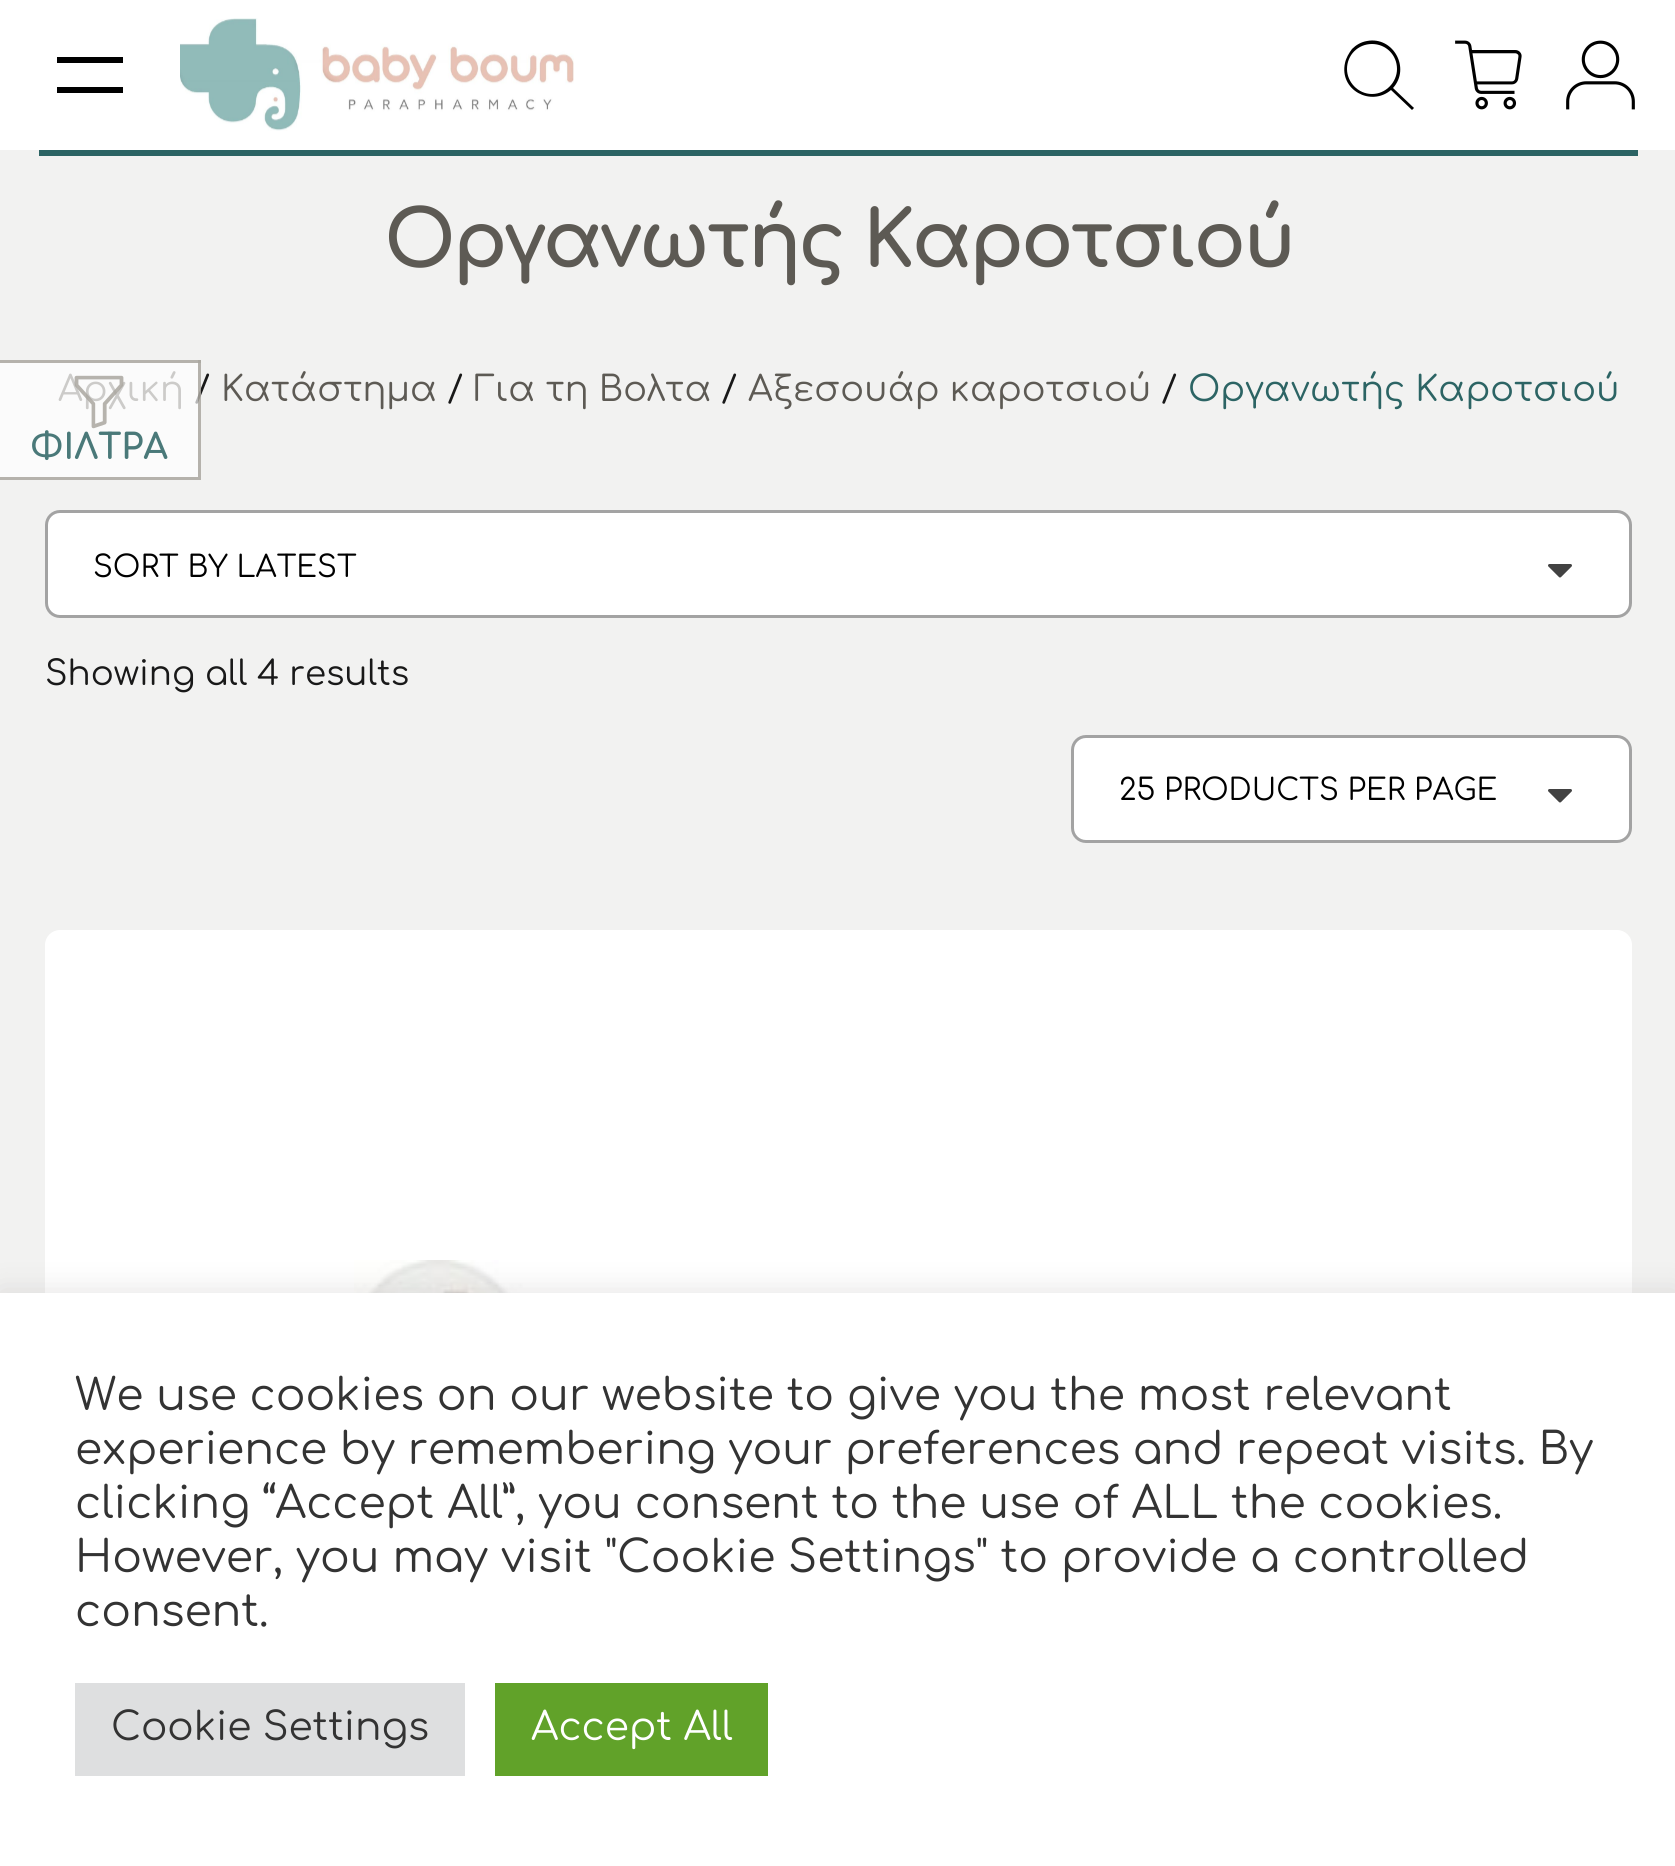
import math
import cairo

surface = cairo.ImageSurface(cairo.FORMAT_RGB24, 1675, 1866)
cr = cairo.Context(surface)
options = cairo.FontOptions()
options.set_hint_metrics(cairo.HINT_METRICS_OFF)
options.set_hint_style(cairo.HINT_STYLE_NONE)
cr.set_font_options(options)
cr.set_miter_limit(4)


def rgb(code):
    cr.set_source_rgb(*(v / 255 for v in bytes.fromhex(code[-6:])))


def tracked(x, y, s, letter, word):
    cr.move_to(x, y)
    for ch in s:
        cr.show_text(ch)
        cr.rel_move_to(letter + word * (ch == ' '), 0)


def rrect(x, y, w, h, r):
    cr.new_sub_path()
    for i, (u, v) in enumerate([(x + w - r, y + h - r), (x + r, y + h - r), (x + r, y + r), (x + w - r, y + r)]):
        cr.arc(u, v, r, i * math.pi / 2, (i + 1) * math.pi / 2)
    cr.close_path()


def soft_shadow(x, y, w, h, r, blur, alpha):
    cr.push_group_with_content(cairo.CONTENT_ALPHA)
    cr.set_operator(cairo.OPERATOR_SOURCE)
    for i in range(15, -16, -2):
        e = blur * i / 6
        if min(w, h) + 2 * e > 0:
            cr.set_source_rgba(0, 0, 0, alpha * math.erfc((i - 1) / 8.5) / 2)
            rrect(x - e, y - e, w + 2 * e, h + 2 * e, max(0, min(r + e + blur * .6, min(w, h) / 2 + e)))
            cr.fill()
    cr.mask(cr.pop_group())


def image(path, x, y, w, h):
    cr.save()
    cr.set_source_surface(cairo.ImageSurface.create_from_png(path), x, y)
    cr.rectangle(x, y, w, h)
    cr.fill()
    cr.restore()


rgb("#f2f2f1")
cr.paint()
for x, y, w, h, color in [
    (0, 0, 1675, 150, "#ffffff"),
    (57, 57, 66, 6, "#000000"),
    (57, 87, 66, 6, "#000000"),
]:
    rgb(color)
    cr.rectangle(x, y, w, h)
    cr.fill()
image("img/1.png", 180, 18, 394, 113)
cr.new_path()
cr.move_to(1414, 108)
cr.line_to(1393, 88)
cr.curve_to(1411, 68, 1393, 36, 1367, 41)
cr.curve_to(1361, 42, 1356, 45, 1352, 49)
cr.curve_to(1349, 53, 1346, 58, 1345, 63)
cr.curve_to(1339, 90, 1371, 107, 1391, 90)
cr.line_to(1412, 110)
cr.close_path()
cr.move_to(1347, 69)
cr.curve_to(1347, 55, 1358, 44, 1372, 44)
cr.curve_to(1386, 44, 1397, 55, 1397, 69)
cr.curve_to(1397, 82, 1386, 94, 1372, 94)
cr.curve_to(1358, 94, 1347, 82, 1347, 69)
cr.close_path()
cr.fill()
image("img/2.png", 1455, 40, 67, 70)
image("img/3.png", 1566, 40, 69, 70)
rgb("#2c6464")
cr.rectangle(39, 150, 1599, 6)
cr.fill()
rgb("#b5b2ac")
cr.rectangle(0, 360, 201, 3)
cr.fill()
rgb("#ffffff")
rrect(46.5, 511.5, 1584, 105, 13.5)
cr.fill_preserve()
rgb("#a3a3a3")
cr.set_line_width(3)
cr.stroke()
image("img/5.png", 1548, 564, 24, 14)
rgb("#ffffff")
rrect(1072.5, 736.5, 558, 105, 13.5)
cr.fill_preserve()
rgb("#a3a3a3")
cr.stroke()
image("img/5.png", 1548, 789, 24, 14)
rgb("#ffffff")
rrect(45, 930, 1587, 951, 15)
cr.fill()
image("img/6.png", 354, 1260, 966, 33)
rgb("#acabab")
soft_shadow(0, 1290, 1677, 573, 0, 15, 0.3)
for x, y, w, h, color in [
    (0, 1293, 1675, 573, "#ffffff"),
    (75, 1683, 390, 93, "#dedfe0"),
    (495, 1683, 273, 93, "#61a229"),
]:
    rgb(color)
    cr.rectangle(x, y, w, h)
    cr.fill()
cr.select_font_face("Comfortaa", cairo.FONT_SLANT_NORMAL, cairo.FONT_WEIGHT_BOLD)
cr.set_font_size(78)
rgb("#5d5a54")
tracked(384, 267, "Οργανωτής Καροτσιού", -3, 0)
cr.select_font_face("Comfortaa")
cr.set_font_size(35.1)
cr.move_to(58, 401)
cr.show_text("Αρχική")
rgb("#191919")
cr.move_to(194, 401)
cr.show_text("/")
rgb("#5d5a54")
cr.move_to(221, 401)
cr.show_text("Κατάστημα")
rgb("#191919")
cr.move_to(447, 401)
cr.show_text("/")
rgb("#5d5a54")
cr.move_to(474, 401)
cr.show_text("Για τη Βολτα")
rgb("#191919")
cr.move_to(721, 401)
cr.show_text("/")
rgb("#5d5a54")
cr.move_to(748, 401)
cr.show_text("Αξεσουάρ καροτσιού")
rgb("#191919")
cr.move_to(1161, 401)
cr.show_text("/")
rgb("#2c6464")
cr.move_to(1188, 401)
cr.show_text("Οργανωτής Καροτσιού")
cr.set_source_rgba(1, 1, 1, 0.68)
cr.rectangle(0, 363, 198, 114)
cr.fill()
cr.set_source_rgba(0.667, 0.655, 0.627, 0.85)
cr.rectangle(198, 360, 3, 120)
cr.fill()
rgb("#b5b2ac")
cr.rectangle(0, 477, 201, 3)
cr.fill()
image("img/4.png", 74, 375, 50, 54)
cr.select_font_face("Comfortaa", cairo.FONT_SLANT_NORMAL, cairo.FONT_WEIGHT_BOLD)
rgb("#4a7979")
cr.move_to(30, 459)
cr.show_text("ΦΙΛΤΡΑ")
cr.select_font_face("Comfortaa")
cr.set_font_size(30)
rgb("#000000")
cr.move_to(93, 577)
cr.show_text("SORT BY LATEST")
cr.set_font_size(34.1)
rgb("#191919")
cr.move_to(45, 685)
cr.show_text("Showing all 4 results")
cr.set_font_size(30)
rgb("#000000")
cr.move_to(1119, 800)
cr.show_text("25 PRODUCTS PER PAGE")
cr.set_font_size(44)
rgb("#333333")
cr.move_to(75, 1410)
cr.show_text("We use cookies on our website to give you the most relevant")
tracked(75, 1464, "experience by remembering your preferences and repeat visits. By", 0, -0.25)
for x, y, s in [
    (75, 1518, "clicking “Accept All”, you consent to the use of ALL the cookies."),
    (75, 1572, "However, you may visit \"Cookie Settings\" to provide a controlled"),
    (75, 1626, "consent."),
]:
    cr.move_to(x, y)
    cr.show_text(s)
cr.set_font_size(39)
cr.move_to(111, 1740)
cr.show_text("Cookie Settings")
rgb("#ffffff")
cr.move_to(531, 1740)
cr.show_text("Accept All")
surface.write_to_png("page.png")
